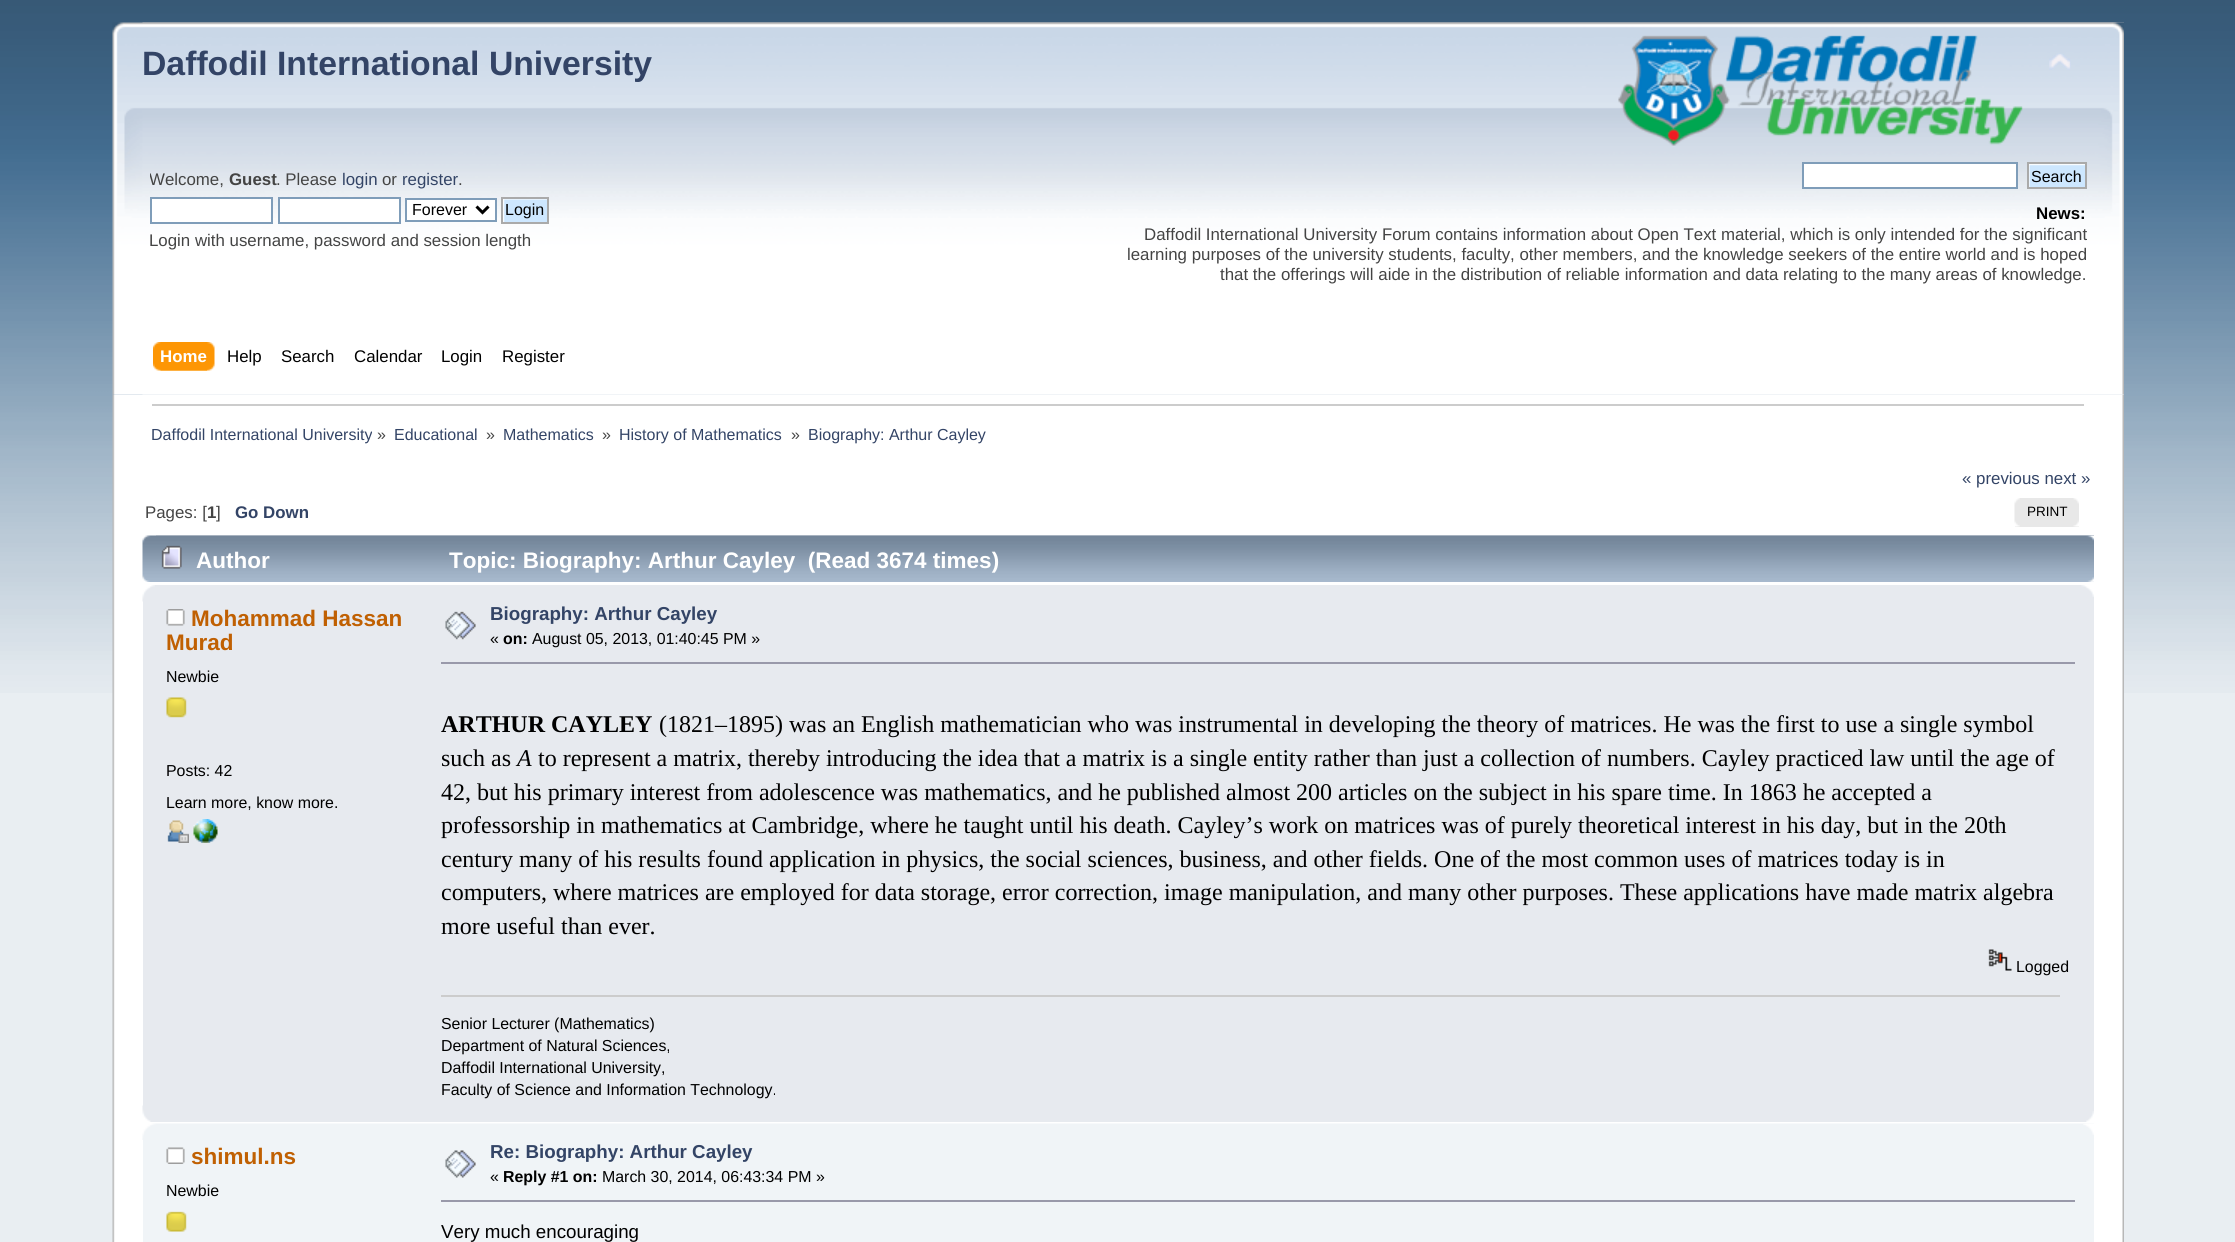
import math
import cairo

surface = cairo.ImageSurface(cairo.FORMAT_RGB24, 2235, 1242)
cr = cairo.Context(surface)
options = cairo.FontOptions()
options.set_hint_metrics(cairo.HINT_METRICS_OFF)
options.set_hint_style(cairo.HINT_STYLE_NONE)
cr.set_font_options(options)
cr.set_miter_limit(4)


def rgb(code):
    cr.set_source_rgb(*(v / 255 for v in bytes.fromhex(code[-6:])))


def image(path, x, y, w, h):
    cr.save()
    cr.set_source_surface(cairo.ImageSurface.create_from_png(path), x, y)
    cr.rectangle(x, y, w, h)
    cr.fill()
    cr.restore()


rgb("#e9eef2")
cr.paint()
image("img/1.png", 0, 0, 2235, 693)
image("img/2.png", 112, 22, 2012, 373)
image("img/3.png", 142, 22, 1982, 373)
image("img/4.png", 1618, 35, 405, 111)
image("img/5.png", 2049, 53, 22, 17)
rgb("#ffffff")
cr.rectangle(151, 198, 121, 25)
cr.fill_preserve()
rgb("#7f9db9")
cr.stroke()
rgb("#ffffff")
cr.rectangle(279, 198, 121, 25)
cr.fill_preserve()
rgb("#7f9db9")
cr.stroke()
rgb("#ffffff")
cr.rectangle(406, 199, 90, 22)
cr.fill_preserve()
rgb("#7f9db9")
cr.stroke()
cr.new_path()
cr.move_to(476.5, 206.5)
cr.line_to(482.5, 212.5)
cr.line_to(488.5, 206.5)
rgb("#000000")
cr.set_line_width(3)
cr.stroke()
image("img/6.png", 503, 199, 44, 23)
cr.rectangle(502, 198, 46, 25)
rgb("#aaaaaa")
cr.set_line_width(2)
cr.stroke()
rgb("#ffffff")
cr.rectangle(1803, 163, 214, 25)
cr.fill_preserve()
rgb("#7f9db9")
cr.stroke()
image("img/7.png", 2029, 164, 56, 23)
cr.rectangle(2028, 163, 58, 25)
rgb("#aaaaaa")
cr.stroke()
image("img/8.png", 160, 342, 55, 29)
image("img/9.png", 153, 342, 54, 29)
image("img/10.png", 112, 394, 2012, 848)
image("img/11.png", 2122, 394, 2, 848)
rgb("#cccccc")
cr.rectangle(152, 404, 1932, 2)
cr.fill()
rgb("#e8e8e8")
cr.rectangle(2015, 498, 64, 29)
cr.fill()
image("img/12.png", 2014, 498, 6, 29)
image("img/13.png", 2073, 498, 6, 29)
image("img/14.png", 142, 535, 1952, 47)
image("img/15.png", 156, 535, 1938, 47)
image("img/16.png", 161, 545, 21, 24)
rgb("#e7eaef")
cr.rectangle(143, 585, 1951, 537)
cr.fill()
image("img/17.png", 142, 585, 13, 17)
image("img/18.png", 2081, 585, 13, 12)
image("img/19.png", 166, 609, 19, 17)
image("img/20.png", 166, 697, 21, 21)
image("img/21.png", 167, 820, 22, 23)
image("img/22.png", 193, 819, 25, 24)
image("img/23.png", 445, 611, 31, 29)
rgb("#9999aa")
cr.rectangle(441, 662, 1634, 2)
cr.fill()
image("img/24.png", 1988, 949, 24, 22)
rgb("#cccccc")
cr.rectangle(441, 995, 1619, 2)
cr.fill()
image("img/25.png", 142, 1105, 9, 17)
image("img/26.png", 2086, 1111, 8, 11)
rgb("#f0f4f7")
cr.rectangle(143, 1140, 1951, 102)
cr.fill()
image("img/27.png", 142, 1123, 1952, 17)
image("img/28.png", 2083, 1123, 11, 12)
image("img/29.png", 166, 1147, 19, 17)
image("img/30.png", 166, 1211, 21, 21)
image("img/31.png", 445, 1150, 31, 28)
rgb("#9999aa")
cr.rectangle(441, 1200, 1634, 2)
cr.fill()
cr.select_font_face("Liberation Sans", cairo.FONT_SLANT_NORMAL, cairo.FONT_WEIGHT_BOLD)
cr.set_font_size(33.75)
rgb("#334466")
cr.move_to(142, 75)
cr.show_text("Daffodil International University")
cr.save()
cr.rectangle(150, 162, 968, 95)
cr.clip()
cr.select_font_face("Liberation Sans")
cr.set_font_size(16.85)
rgb("#444444")
cr.move_to(149, 185)
cr.show_text("Welcome,")
cr.restore()
cr.set_font_size(16.85)
rgb("#444444")
cr.move_to(229, 185)
cr.show_text("Guest")
cr.select_font_face("Liberation Sans")
cr.move_to(276, 185)
cr.show_text(". Please")
rgb("#334466")
cr.move_to(342, 185)
cr.show_text("login")
rgb("#444444")
cr.move_to(382, 185)
cr.show_text("or")
rgb("#334466")
cr.move_to(402, 185)
cr.show_text("register")
rgb("#444444")
cr.move_to(458, 185)
cr.show_text(".")
cr.set_font_size(16)
rgb("#000000")
cr.move_to(412, 215)
cr.show_text("Forever")
cr.move_to(505, 215)
cr.show_text("Login")
cr.set_font_size(16.85)
rgb("#444444")
cr.move_to(149, 246)
cr.show_text("Login with username, password and session length")
cr.set_font_size(16)
rgb("#000000")
cr.move_to(2031, 182)
cr.show_text("Search")
cr.select_font_face("Liberation Sans", cairo.FONT_SLANT_NORMAL, cairo.FONT_WEIGHT_BOLD)
cr.set_font_size(16.85)
cr.move_to(2036, 219)
cr.show_text("News:")
cr.select_font_face("Liberation Sans")
rgb("#444444")
for x, y, s in [
    (1144, 240, "Daffodil International University Forum contains information about Open Text material, which is only intended for the significant"),
    (1127, 260, "learning purposes of the university students, faculty, other members, and the knowledge seekers of the entire world and is hoped"),
    (1220, 280, "that the offerings will aide in the distribution of reliable information and data relating to the many areas of knowledge."),
]:
    cr.move_to(x, y)
    cr.show_text(s)
cr.select_font_face("Liberation Sans", cairo.FONT_SLANT_NORMAL, cairo.FONT_WEIGHT_BOLD)
rgb("#ffffff")
cr.move_to(160, 362)
cr.show_text("Home")
cr.select_font_face("Liberation Sans")
rgb("#000000")
for x, y, s in [
    (227, 362, "Help"),
    (281, 362, "Search"),
    (354, 362, "Calendar"),
    (441, 362, "Login"),
    (502, 362, "Register"),
]:
    cr.move_to(x, y)
    cr.show_text(s)
cr.set_font_size(16)
rgb("#334466")
cr.move_to(151, 440)
cr.show_text("Daffodil International University")
rgb("#444444")
cr.move_to(377, 440)
cr.show_text("»")
rgb("#334466")
cr.move_to(394, 440)
cr.show_text("Educational")
rgb("#444444")
cr.move_to(486, 440)
cr.show_text("»")
rgb("#334466")
cr.move_to(503, 440)
cr.show_text("Mathematics")
rgb("#444444")
cr.move_to(602, 440)
cr.show_text("»")
rgb("#334466")
cr.move_to(619, 440)
cr.show_text("History of Mathematics")
rgb("#444444")
cr.move_to(791, 440)
cr.show_text("»")
rgb("#334466")
cr.move_to(808, 440)
cr.show_text("Biography: Arthur Cayley")
cr.set_font_size(16.85)
cr.move_to(1962, 484)
cr.show_text("« previous next »")
rgb("#444444")
cr.move_to(145, 518)
cr.show_text("Pages: [")
cr.select_font_face("Liberation Sans", cairo.FONT_SLANT_NORMAL, cairo.FONT_WEIGHT_BOLD)
cr.move_to(207, 518)
cr.show_text("1")
cr.select_font_face("Liberation Sans")
cr.move_to(216, 518)
cr.show_text("]")
cr.select_font_face("Liberation Sans", cairo.FONT_SLANT_NORMAL, cairo.FONT_WEIGHT_BOLD)
rgb("#334466")
cr.move_to(235, 518)
cr.show_text("Go Down")
cr.select_font_face("Liberation Sans")
cr.set_font_size(13.5)
rgb("#000000")
cr.move_to(2027, 516)
cr.show_text("PRINT")
cr.select_font_face("Liberation Sans", cairo.FONT_SLANT_NORMAL, cairo.FONT_WEIGHT_BOLD)
cr.set_font_size(22.5)
rgb("#ffffff")
cr.move_to(196, 568)
cr.show_text("Author")
cr.move_to(449, 568)
cr.show_text("Topic: Biography: Arthur Cayley  (Read 3674 times)")
rgb("#c06002")
cr.move_to(191, 626)
cr.show_text("Mohammad Hassan")
cr.move_to(166, 650)
cr.show_text("Murad")
cr.select_font_face("Liberation Sans")
cr.set_font_size(15.9)
rgb("#000000")
for x, y, s in [
    (166, 682, "Newbie"),
    (166, 776, "Posts: 42"),
    (166, 808, "Learn more, know more."),
]:
    cr.move_to(x, y)
    cr.show_text(s)
cr.select_font_face("Liberation Sans", cairo.FONT_SLANT_NORMAL, cairo.FONT_WEIGHT_BOLD)
cr.set_font_size(18.75)
rgb("#334466")
cr.move_to(490, 620)
cr.show_text("Biography: Arthur Cayley")
cr.select_font_face("Liberation Sans")
cr.set_font_size(15.9)
rgb("#000000")
cr.move_to(490, 644)
cr.show_text("«")
cr.select_font_face("Liberation Sans", cairo.FONT_SLANT_NORMAL, cairo.FONT_WEIGHT_BOLD)
cr.move_to(503, 644)
cr.show_text("on:")
cr.select_font_face("Liberation Sans")
cr.move_to(532, 644)
cr.show_text("August 05, 2013, 01:40:45 PM »")
cr.select_font_face("Liberation Serif", cairo.FONT_SLANT_NORMAL, cairo.FONT_WEIGHT_BOLD)
cr.set_font_size(24)
cr.move_to(441, 732)
cr.show_text("ARTHUR CAYLEY")
cr.select_font_face("Liberation Serif")
cr.move_to(659, 732)
cr.show_text("(1821–1895) was an English mathematician who was instrumental in developing the theory of matrices. He was the first to use a single symbol")
cr.move_to(441, 766)
cr.show_text("such as")
cr.select_font_face("Liberation Serif", cairo.FONT_SLANT_ITALIC)
cr.move_to(517, 766)
cr.show_text("A")
cr.select_font_face("Liberation Serif")
for x, y, s in [
    (538, 766, "to represent a matrix, thereby introducing the idea that a matrix is a single entity rather than just a collection of numbers. Cayley practiced law until the age of"),
    (441, 800, "42, but his primary interest from adolescence was mathematics, and he published almost 200 articles on the subject in his spare time. In 1863 he accepted a"),
    (441, 833, "professorship in mathematics at Cambridge, where he taught until his death. Cayley’s work on matrices was of purely theoretical interest in his day, but in the 20th"),
    (441, 867, "century many of his results found application in physics, the social sciences, business, and other fields. One of the most common uses of matrices today is in"),
    (441, 900, "computers, where matrices are employed for data storage, error correction, image manipulation, and many other purposes. These applications have made matrix algebra"),
    (441, 934, "more useful than ever."),
]:
    cr.move_to(x, y)
    cr.show_text(s)
cr.select_font_face("Liberation Sans")
cr.set_font_size(15.9)
for x, y, s in [
    (2016, 972, "Logged"),
    (441, 1029, "Senior Lecturer (Mathematics)"),
    (441, 1051, "Department of Natural Sciences,"),
    (441, 1073, "Daffodil International University,"),
    (441, 1095, "Faculty of Science and Information Technology."),
]:
    cr.move_to(x, y)
    cr.show_text(s)
cr.select_font_face("Liberation Sans", cairo.FONT_SLANT_NORMAL, cairo.FONT_WEIGHT_BOLD)
cr.set_font_size(22.5)
rgb("#c06002")
cr.move_to(191, 1164)
cr.show_text("shimul.ns")
cr.select_font_face("Liberation Sans")
cr.set_font_size(15.9)
rgb("#000000")
cr.move_to(166, 1196)
cr.show_text("Newbie")
cr.select_font_face("Liberation Sans", cairo.FONT_SLANT_NORMAL, cairo.FONT_WEIGHT_BOLD)
cr.set_font_size(18.75)
rgb("#334466")
cr.move_to(490, 1158)
cr.show_text("Re: Biography: Arthur Cayley")
cr.select_font_face("Liberation Sans")
cr.set_font_size(15.9)
rgb("#000000")
cr.move_to(490, 1182)
cr.show_text("«")
cr.select_font_face("Liberation Sans", cairo.FONT_SLANT_NORMAL, cairo.FONT_WEIGHT_BOLD)
cr.move_to(503, 1182)
cr.show_text("Reply #1 on:")
cr.select_font_face("Liberation Sans")
cr.move_to(602, 1182)
cr.show_text("March 30, 2014, 06:43:34 PM »")
cr.set_font_size(18.75)
cr.move_to(441, 1238)
cr.show_text("Very much encouraging")
surface.write_to_png("page.png")
